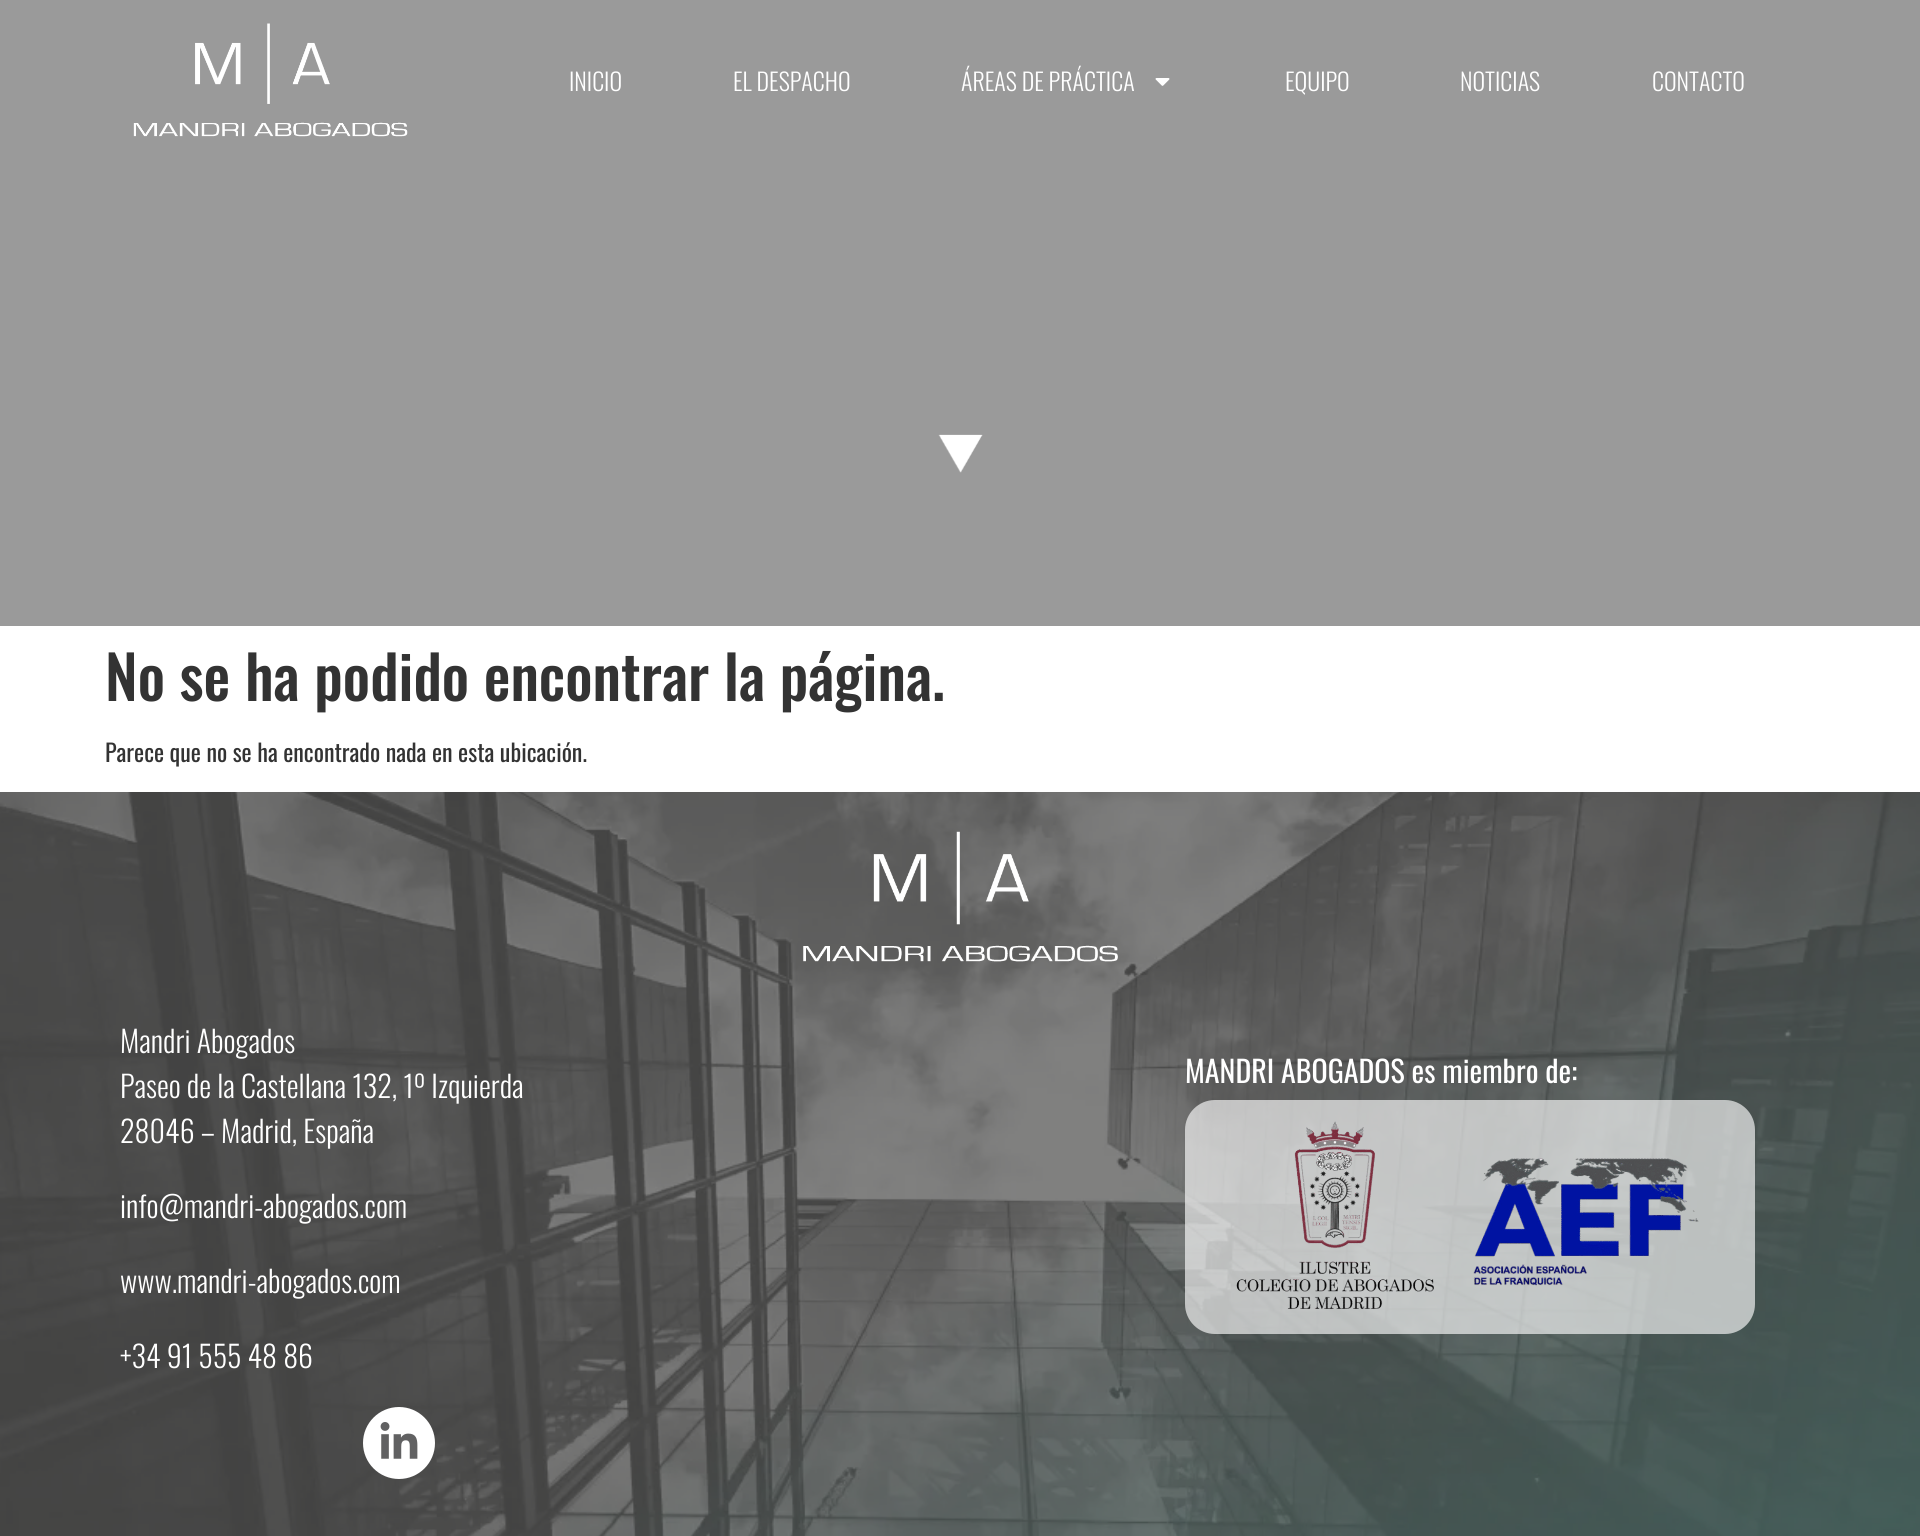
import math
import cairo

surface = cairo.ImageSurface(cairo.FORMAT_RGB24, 1920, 1536)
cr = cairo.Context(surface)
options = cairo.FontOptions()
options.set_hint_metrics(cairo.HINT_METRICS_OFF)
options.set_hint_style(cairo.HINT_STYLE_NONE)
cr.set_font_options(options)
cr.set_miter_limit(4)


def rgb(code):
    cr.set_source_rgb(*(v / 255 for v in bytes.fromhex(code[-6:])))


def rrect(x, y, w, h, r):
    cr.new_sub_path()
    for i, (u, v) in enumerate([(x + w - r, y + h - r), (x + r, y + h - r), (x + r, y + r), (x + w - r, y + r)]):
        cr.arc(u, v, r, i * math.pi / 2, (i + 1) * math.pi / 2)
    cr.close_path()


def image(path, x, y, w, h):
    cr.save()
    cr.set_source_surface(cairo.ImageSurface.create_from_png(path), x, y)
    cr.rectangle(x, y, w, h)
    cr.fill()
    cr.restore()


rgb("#ffffff")
cr.paint()
rgb("#9a9a9a")
cr.rectangle(0, 0, 1920, 626)
cr.fill()
image("img/1.png", 938, 434, 45, 39)
image("img/2.png", 133, 23, 275, 114)
image("img/3.png", 1155, 78, 15, 8)
image("img/4.png", 0, 792, 1920, 744)
image("img/5.png", 803, 831, 315, 131)
rgb("#ffffff")
cr.arc(399, 1443, 36, 0, 2 * math.pi)
cr.fill()
image("img/6.png", 380, 1422, 38, 37)
cr.set_source_rgba(1, 1, 1, 0.64)
rrect(1185, 1100, 570, 234, 30)
cr.fill()
image("img/7.png", 1236, 1121, 463, 189)
cr.select_font_face("Oswald Light")
cr.set_font_size(24)
rgb("#ffffff")
for x, y, s in [
    (569, 91, "INICIO"),
    (733, 91, "EL DESPACHO"),
    (961, 91, "ÁREAS DE PRÁCTICA"),
    (1285, 91, "EQUIPO"),
    (1460, 91, "NOTICIAS"),
    (1652, 91, "CONTACTO"),
]:
    cr.move_to(x, y)
    cr.show_text(s)
cr.select_font_face("Oswald Medium")
cr.set_font_size(60)
rgb("#333333")
cr.move_to(105, 701)
cr.show_text("No se ha podido encontrar la página.")
cr.select_font_face("Oswald")
cr.set_font_size(24)
cr.move_to(105, 762)
cr.show_text("Parece que no se ha encontrado nada en esta ubicación.")
cr.select_font_face("Oswald Light")
cr.set_font_size(30)
rgb("#ffffff")
for x, y, s in [
    (120, 1053, "Mandri Abogados"),
    (120, 1098, "Paseo de la Castellana 132, 1º Izquierda"),
    (120, 1143, "28046 – Madrid, España"),
    (120, 1218, "info@mandri-abogados.com"),
    (120, 1293, "www.mandri-abogados.com"),
    (120, 1368, "+34 91 555 48 86"),
]:
    cr.move_to(x, y)
    cr.show_text(s)
cr.select_font_face("Oswald")
cr.move_to(1185, 1083)
cr.show_text("MANDRI ABOGADOS es miembro de:")
surface.write_to_png("page.png")
